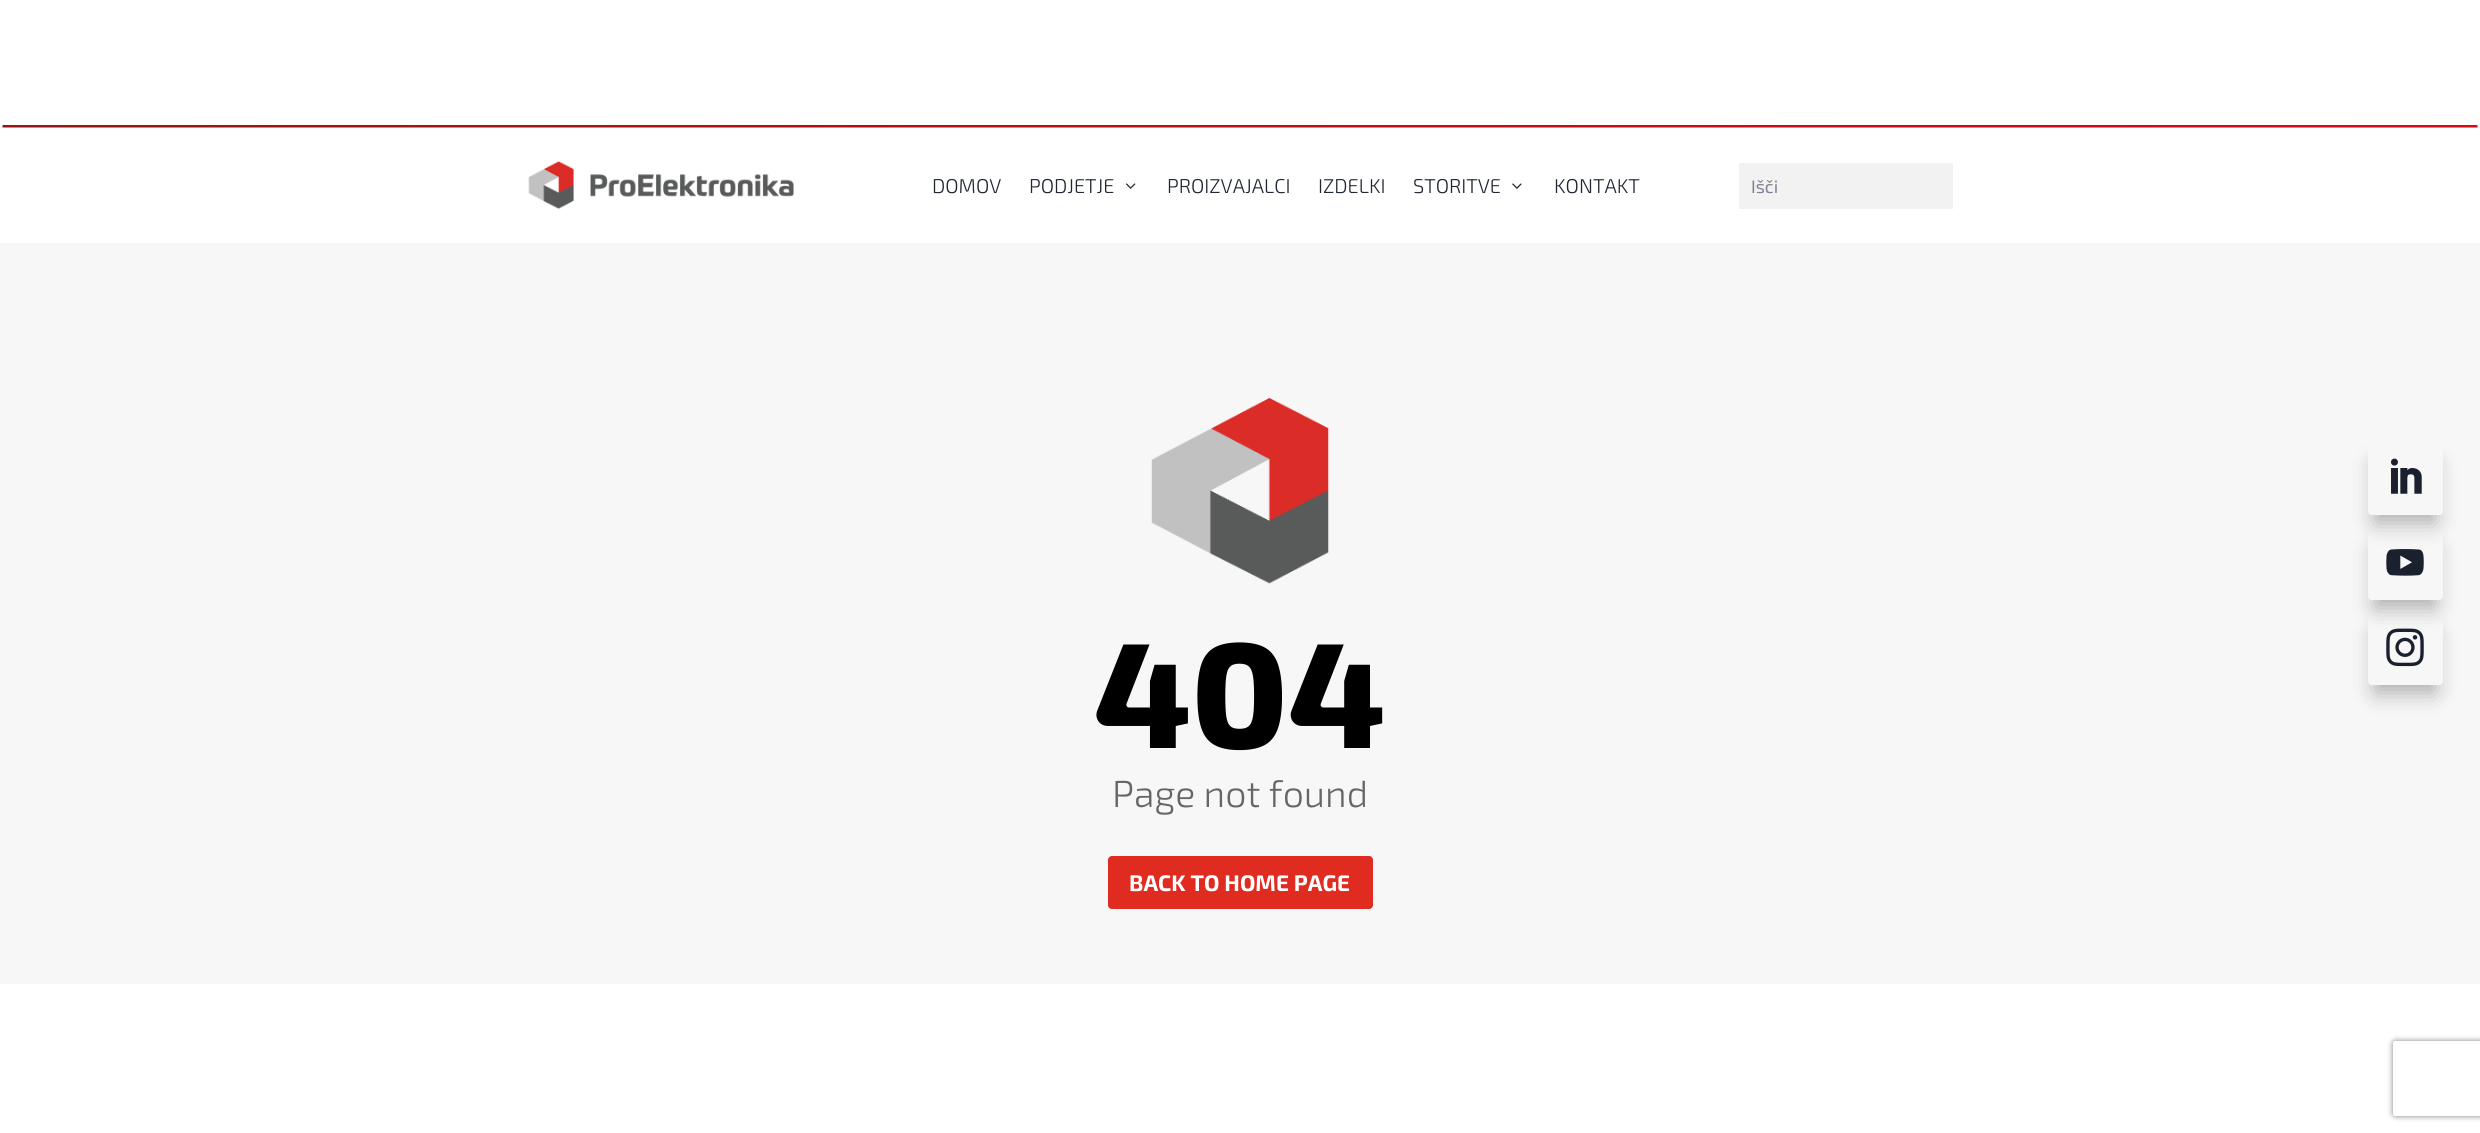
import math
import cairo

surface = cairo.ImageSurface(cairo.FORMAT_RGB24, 2480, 1133)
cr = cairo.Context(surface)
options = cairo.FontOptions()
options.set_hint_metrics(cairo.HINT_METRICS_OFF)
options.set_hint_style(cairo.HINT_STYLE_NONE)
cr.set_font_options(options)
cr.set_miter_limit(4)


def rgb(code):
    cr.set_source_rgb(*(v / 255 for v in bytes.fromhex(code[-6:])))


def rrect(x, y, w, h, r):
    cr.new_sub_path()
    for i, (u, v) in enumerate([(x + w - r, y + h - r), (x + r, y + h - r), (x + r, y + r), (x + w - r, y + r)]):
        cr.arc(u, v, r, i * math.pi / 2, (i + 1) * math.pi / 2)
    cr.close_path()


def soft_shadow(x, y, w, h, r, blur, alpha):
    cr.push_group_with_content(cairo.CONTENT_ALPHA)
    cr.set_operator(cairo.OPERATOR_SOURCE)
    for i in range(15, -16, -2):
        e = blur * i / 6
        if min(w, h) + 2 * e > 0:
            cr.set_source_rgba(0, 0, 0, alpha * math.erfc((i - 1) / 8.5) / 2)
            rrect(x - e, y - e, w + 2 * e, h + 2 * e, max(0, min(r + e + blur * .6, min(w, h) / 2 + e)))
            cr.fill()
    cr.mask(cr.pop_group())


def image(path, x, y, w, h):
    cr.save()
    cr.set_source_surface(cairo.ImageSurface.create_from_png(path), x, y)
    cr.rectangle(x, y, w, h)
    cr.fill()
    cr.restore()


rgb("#ffffff")
cr.paint()
image("img/1.png", 2, 125, 2476, 3)
image("img/2.png", 528, 161, 266, 48)
image("img/3.png", 1126, 183, 10, 6)
image("img/4.png", 1512, 183, 10, 6)
rgb("#f2f2f2")
cr.rectangle(1739, 163, 214, 46)
cr.fill()
rgb("#f7f7f7")
cr.rectangle(0, 243, 2480, 741)
cr.fill()
cr.save()
cr.set_fill_rule(cairo.FILL_RULE_EVEN_ODD)
cr.new_path()
cr.move_to(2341, 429)
cr.line_to(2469, 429)
cr.line_to(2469, 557)
cr.line_to(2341, 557)
cr.close_path()
cr.move_to(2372, 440)
cr.line_to(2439, 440)
cr.curve_to(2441, 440, 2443, 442, 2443, 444)
cr.line_to(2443, 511)
cr.curve_to(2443, 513, 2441, 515, 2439, 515)
cr.line_to(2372, 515)
cr.curve_to(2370, 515, 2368, 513, 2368, 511)
cr.line_to(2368, 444)
cr.curve_to(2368, 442, 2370, 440, 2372, 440)
cr.close_path()
cr.clip()
rgb("#000000")
soft_shadow(2375, 463, 60, 60, 0, 11, 0.3)
cr.restore()
image("img/5.png", 2391, 458, 31, 36)
cr.save()
cr.set_fill_rule(cairo.FILL_RULE_EVEN_ODD)
cr.new_path()
cr.move_to(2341, 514)
cr.line_to(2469, 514)
cr.line_to(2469, 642)
cr.line_to(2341, 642)
cr.close_path()
cr.move_to(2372, 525)
cr.line_to(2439, 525)
cr.curve_to(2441, 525, 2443, 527, 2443, 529)
cr.line_to(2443, 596)
cr.curve_to(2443, 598, 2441, 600, 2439, 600)
cr.line_to(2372, 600)
cr.curve_to(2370, 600, 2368, 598, 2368, 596)
cr.line_to(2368, 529)
cr.curve_to(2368, 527, 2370, 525, 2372, 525)
cr.close_path()
cr.clip()
rgb("#000000")
soft_shadow(2375, 548, 60, 60, 0, 11, 0.3)
cr.restore()
image("img/6.png", 2386, 549, 38, 27)
cr.save()
cr.set_fill_rule(cairo.FILL_RULE_EVEN_ODD)
cr.new_path()
cr.move_to(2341, 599)
cr.line_to(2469, 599)
cr.line_to(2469, 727)
cr.line_to(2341, 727)
cr.close_path()
cr.move_to(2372, 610)
cr.line_to(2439, 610)
cr.curve_to(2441, 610, 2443, 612, 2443, 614)
cr.line_to(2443, 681)
cr.curve_to(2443, 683, 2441, 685, 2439, 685)
cr.line_to(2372, 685)
cr.curve_to(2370, 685, 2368, 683, 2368, 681)
cr.line_to(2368, 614)
cr.curve_to(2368, 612, 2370, 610, 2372, 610)
cr.close_path()
cr.clip()
rgb("#000000")
soft_shadow(2375, 633, 60, 60, 0, 11, 0.3)
cr.restore()
image("img/7.png", 2386, 628, 38, 39)
image("img/8.png", 1151, 397, 178, 187)
rgb("#e02b20")
rrect(1108, 856, 265, 53, 4)
cr.fill()
cr.save()
cr.set_fill_rule(cairo.FILL_RULE_EVEN_ODD)
cr.new_path()
cr.move_to(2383, 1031)
cr.line_to(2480, 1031)
cr.line_to(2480, 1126)
cr.line_to(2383, 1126)
cr.close_path()
cr.move_to(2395.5, 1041)
cr.line_to(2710.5, 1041)
cr.curve_to(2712, 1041, 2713, 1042, 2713, 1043.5)
cr.line_to(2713, 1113.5)
cr.curve_to(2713, 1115, 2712, 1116, 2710.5, 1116)
cr.line_to(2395.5, 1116)
cr.curve_to(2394, 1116, 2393, 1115, 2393, 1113.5)
cr.line_to(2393, 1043.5)
cr.curve_to(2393, 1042, 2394, 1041, 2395.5, 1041)
cr.close_path()
cr.clip()
rgb("#808080")
soft_shadow(2393, 1041, 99, 75, 2.5, 3, 1)
cr.restore()
cr.select_font_face("Exo 2 Light")
cr.set_font_size(20)
rgb("#1f2532")
for x, y, s in [
    (932, 193, "DOMOV"),
    (1029, 193, "PODJETJE"),
    (1167, 193, "PROIZVAJALCI"),
    (1318, 193, "IZDELKI"),
    (1413, 193, "STORITVE"),
    (1554, 193, "KONTAKT"),
]:
    cr.move_to(x, y)
    cr.show_text(s)
cr.select_font_face("Exo 2")
cr.set_font_size(18)
rgb("#808191")
cr.move_to(1751, 193)
cr.show_text("Išči")
cr.select_font_face("Exo 2 ExtraBold")
cr.set_font_size(150)
rgb("#000000")
cr.move_to(1094, 748)
cr.show_text("404")
cr.select_font_face("Exo 2 Light")
cr.set_font_size(37.5)
rgb("#666666")
cr.move_to(1112, 807)
cr.show_text("Page not found")
cr.select_font_face("Exo 2", cairo.FONT_SLANT_NORMAL, cairo.FONT_WEIGHT_BOLD)
cr.set_font_size(22.5)
rgb("#ffffff")
cr.move_to(1129, 891)
cr.show_text("BACK TO HOME PAGE")
surface.write_to_png("page.png")
